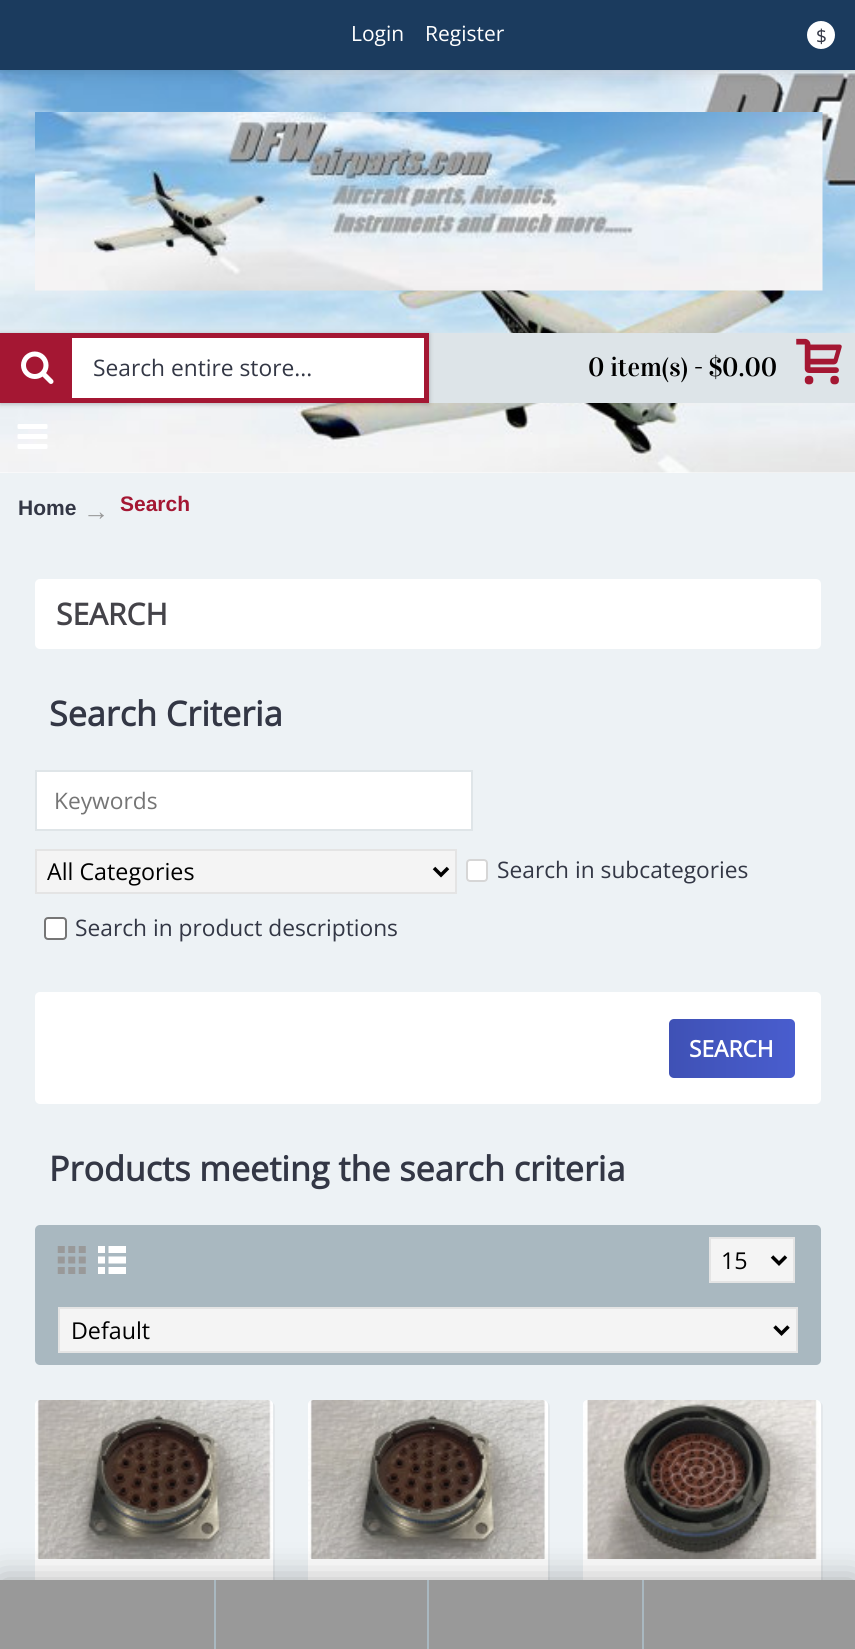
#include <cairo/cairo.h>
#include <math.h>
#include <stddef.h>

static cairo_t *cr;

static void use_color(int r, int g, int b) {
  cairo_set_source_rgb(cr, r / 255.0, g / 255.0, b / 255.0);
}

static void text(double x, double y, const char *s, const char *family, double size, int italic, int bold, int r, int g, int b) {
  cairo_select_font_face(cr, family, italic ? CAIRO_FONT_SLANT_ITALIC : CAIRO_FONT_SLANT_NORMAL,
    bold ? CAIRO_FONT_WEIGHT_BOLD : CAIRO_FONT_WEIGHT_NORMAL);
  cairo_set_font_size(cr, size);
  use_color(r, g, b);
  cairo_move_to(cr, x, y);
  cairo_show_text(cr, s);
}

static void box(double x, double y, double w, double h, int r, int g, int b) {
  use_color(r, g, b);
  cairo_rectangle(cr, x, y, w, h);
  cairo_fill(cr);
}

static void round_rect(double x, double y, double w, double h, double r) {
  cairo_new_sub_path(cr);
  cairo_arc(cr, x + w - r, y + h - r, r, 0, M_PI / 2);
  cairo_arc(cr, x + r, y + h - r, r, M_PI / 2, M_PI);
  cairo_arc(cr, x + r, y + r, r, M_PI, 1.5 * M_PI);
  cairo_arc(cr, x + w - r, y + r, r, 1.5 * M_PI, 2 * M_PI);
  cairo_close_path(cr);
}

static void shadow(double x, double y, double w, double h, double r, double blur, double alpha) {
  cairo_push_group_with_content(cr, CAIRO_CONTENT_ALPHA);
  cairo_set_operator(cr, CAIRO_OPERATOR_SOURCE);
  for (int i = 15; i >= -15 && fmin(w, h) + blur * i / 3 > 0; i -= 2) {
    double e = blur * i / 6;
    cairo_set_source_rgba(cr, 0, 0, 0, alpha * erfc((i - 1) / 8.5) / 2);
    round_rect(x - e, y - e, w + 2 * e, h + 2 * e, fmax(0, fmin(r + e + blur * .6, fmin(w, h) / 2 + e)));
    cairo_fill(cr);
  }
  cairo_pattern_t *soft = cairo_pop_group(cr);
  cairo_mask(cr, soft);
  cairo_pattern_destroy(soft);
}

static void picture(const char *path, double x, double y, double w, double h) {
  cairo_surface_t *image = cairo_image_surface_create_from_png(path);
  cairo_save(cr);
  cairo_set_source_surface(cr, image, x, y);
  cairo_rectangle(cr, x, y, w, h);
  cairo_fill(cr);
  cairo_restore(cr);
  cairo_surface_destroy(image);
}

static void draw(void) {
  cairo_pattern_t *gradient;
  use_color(237, 242, 245);
  cairo_paint(cr);
  box(0, 472, 855, 1, 255, 255, 255);
  picture("img_01.png", 0, 70, 855, 403);
  use_color(0, 0, 0);
  shadow(0, 0, 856, 70, 0, 9, 0.2);
  box(0, 0, 855, 70, 27, 59, 94);
  use_color(255, 255, 255);
  cairo_arc(cr, 821, 35, 14, 0, 2 * M_PI);
  cairo_fill(cr);
  use_color(228, 232, 235);
  cairo_new_path(cr);
  cairo_move_to(cr, 38, 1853);
  cairo_curve_to(cr, 39, 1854, 40, 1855, 42, 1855);
  cairo_line_to(cr, 270, 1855);
  cairo_curve_to(cr, 273, 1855, 275, 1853, 275, 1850);
  cairo_line_to(cr, 275, 1407);
  cairo_curve_to(cr, 275, 1405, 274, 1403, 272, 1403);
  cairo_line_to(cr, 273, 1405);
  cairo_line_to(cr, 273, 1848);
  cairo_curve_to(cr, 273, 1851, 271, 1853, 268, 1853);
  cairo_line_to(cr, 40, 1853);
  cairo_close_path(cr);
  cairo_fill(cr);
  use_color(255, 255, 255);
  round_rect(35, 1400, 238, 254, 5);
  cairo_fill(cr);
  use_color(228, 232, 235);
  cairo_new_path(cr);
  cairo_move_to(cr, 311, 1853);
  cairo_curve_to(cr, 312, 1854, 313, 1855, 315, 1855);
  cairo_line_to(cr, 545, 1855);
  cairo_curve_to(cr, 548, 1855, 550, 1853, 550, 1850);
  cairo_line_to(cr, 550, 1407);
  cairo_curve_to(cr, 550, 1405, 549, 1403, 547, 1402);
  cairo_line_to(cr, 548, 1405);
  cairo_line_to(cr, 548, 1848);
  cairo_curve_to(cr, 548, 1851, 545, 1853, 542, 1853);
  cairo_line_to(cr, 313, 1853);
  cairo_close_path(cr);
  cairo_fill(cr);
  use_color(255, 255, 255);
  round_rect(308, 1400, 240, 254, 5);
  cairo_fill(cr);
  use_color(228, 232, 235);
  cairo_new_path(cr);
  cairo_move_to(cr, 586, 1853);
  cairo_curve_to(cr, 587, 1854, 588, 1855, 590, 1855);
  cairo_line_to(cr, 818, 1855);
  cairo_curve_to(cr, 821, 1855, 823, 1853, 823, 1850);
  cairo_line_to(cr, 823, 1407);
  cairo_curve_to(cr, 823, 1405, 822, 1403, 820, 1402);
  cairo_line_to(cr, 821, 1405);
  cairo_line_to(cr, 821, 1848);
  cairo_curve_to(cr, 821, 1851, 818, 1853, 816, 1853);
  cairo_line_to(cr, 588, 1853);
  cairo_close_path(cr);
  cairo_fill(cr);
  use_color(255, 255, 255);
  round_rect(583, 1400, 238, 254, 5);
  cairo_fill(cr);
  box(0, 1580, 855, 69, 153, 153, 153);
  picture("img_08.png", 35, 1400, 238, 160);
  picture("img_09.png", 308, 1400, 238, 160);
  picture("img_10.png", 583, 1400, 236, 160);
  cairo_save(cr);
  cairo_set_fill_rule(cr, CAIRO_FILL_RULE_EVEN_ODD);
  cairo_new_path(cr);
  cairo_move_to(cr, 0, 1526);
  cairo_line_to(cr, 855, 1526);
  cairo_line_to(cr, 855, 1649);
  cairo_line_to(cr, 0, 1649);
  cairo_close_path(cr);
  cairo_move_to(cr, 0, 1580);
  cairo_line_to(cr, 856, 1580);
  cairo_line_to(cr, 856, 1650);
  cairo_line_to(cr, 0, 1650);
  cairo_close_path(cr);
  cairo_clip(cr);
  use_color(0, 0, 0);
  shadow(0, 1580, 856, 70, 0, 17.5, 0.3);
  cairo_restore(cr);
  box(214, 1580, 2, 69, 169, 184, 192);
  box(427, 1580, 2, 69, 169, 184, 192);
  box(642, 1580, 2, 69, 169, 184, 192);
  picture("img_02.png", 35, 112, 788, 179);
  box(429, 333, 426, 70, 221, 228, 232);
  use_color(0, 0, 0);
  shadow(0, 334, 429, 70, 0, 2.5, 0.25);
  box(72, 338, 352, 60, 255, 255, 255);
  cairo_rectangle(cr, 2.5, 335.5, 424, 65);
  use_color(164, 23, 51);
  cairo_set_line_width(cr, 5);
  cairo_stroke(cr);
  box(5, 338, 67, 60, 164, 23, 51);
  picture("img_03.png", 21, 351, 33, 33);
  picture("img_04.png", 796, 338, 46, 47);
  picture("img_05.png", 17, 424, 31, 25);
  use_color(255, 255, 255);
  round_rect(35, 579, 786, 70, 5);
  cairo_fill(cr);
  cairo_rectangle(cr, 36, 771, 436, 59);
  cairo_fill_preserve(cr);
  use_color(223, 229, 232);
  cairo_set_line_width(cr, 2);
  cairo_stroke(cr);
  use_color(244, 244, 244);
  cairo_rectangle(cr, 36, 850, 420, 43);
  cairo_fill_preserve(cr);
  use_color(228, 228, 228);
  cairo_stroke(cr);
  cairo_new_path(cr);
  cairo_move_to(cr, 434, 868);
  cairo_line_to(cr, 441, 875);
  cairo_line_to(cr, 448, 868);
  use_color(0, 0, 0);
  cairo_set_line_width(cr, 3.5);
  cairo_stroke(cr);
  use_color(255, 255, 255);
  round_rect(466, 859, 22, 23, 4);
  cairo_fill(cr);
  round_rect(467, 860, 20, 21, 3);
  cairo_set_source_rgba(cr, 0.463, 0.463, 0.463, 0.3);
  cairo_set_line_width(cr, 2);
  cairo_stroke(cr);
  use_color(255, 255, 255);
  round_rect(45, 918, 21, 21, 3);
  cairo_fill_preserve(cr);
  use_color(118, 118, 118);
  cairo_stroke(cr);
  use_color(255, 255, 255);
  round_rect(35, 992, 786, 112, 5);
  cairo_fill(cr);
  gradient = cairo_pattern_create_linear(795, 1048, 669, 1048);
  cairo_pattern_add_color_stop_rgba(gradient, 0, 0.286, 0.365, 0.808, 1);
  cairo_pattern_add_color_stop_rgba(gradient, 1, 0.247, 0.318, 0.71, 1);
  cairo_set_source(cr, gradient);
  cairo_pattern_destroy(gradient);
  round_rect(669, 1019, 126, 59, 5);
  cairo_fill(cr);
  use_color(169, 184, 192);
  round_rect(35, 1225, 786, 140, 5);
  cairo_fill(cr);
  picture("img_06.png", 57, 1246, 29, 28);
  picture("img_07.png", 98, 1246, 28, 28);
  use_color(244, 244, 244);
  cairo_rectangle(cr, 710, 1238, 84, 44);
  cairo_fill_preserve(cr);
  use_color(228, 228, 228);
  cairo_stroke(cr);
  cairo_new_path(cr);
  cairo_move_to(cr, 772, 1256.5);
  cairo_line_to(cr, 779, 1263.5);
  cairo_line_to(cr, 786, 1256.5);
  use_color(0, 0, 0);
  cairo_set_line_width(cr, 3.5);
  cairo_stroke(cr);
  use_color(244, 244, 244);
  cairo_rectangle(cr, 59, 1308, 738, 44);
  cairo_fill_preserve(cr);
  use_color(228, 228, 228);
  cairo_set_line_width(cr, 2);
  cairo_stroke(cr);
  cairo_new_path(cr);
  cairo_move_to(cr, 774.5, 1326.5);
  cairo_line_to(cr, 781.5, 1333.5);
  cairo_line_to(cr, 788.5, 1326.5);
  use_color(0, 0, 0);
  cairo_set_line_width(cr, 3.5);
  cairo_stroke(cr);
  text(351, 41, "Login", "Open Sans", 21, 0, 0, 255, 255, 255);
  text(425, 41, "Register", "Open Sans", 21, 0, 0, 255, 255, 255);
  text(816, 43, "$", "Open Sans", 19, 0, 0, 51, 55, 69);
  text(93, 376, "Search entire store...", "Open Sans", 22.75, 0, 0, 51, 55, 69);
  text(588, 376, "0 item(s) - $0.00", "Vidaloka", 26.25, 0, 0, 0, 0, 0);
  text(18, 515, "Home", "Liberation Sans", 21, 0, 1, 51, 55, 69);
  text(120, 511, "Search", "Liberation Sans", 21, 0, 1, 164, 23, 51);
  text(83, 520, "→", "Liberation Serif", 26.25, 0, 0, 153, 153, 153);
  text(56, 625, "SEARCH", "Open Sans", 30, 0, 1, 68, 67, 73);
  text(49, 726, "Search Criteria", "Open Sans", 34.1, 0, 1, 51, 55, 69);
  text(54, 809, "Keywords", "Open Sans", 22.75, 0, 0, 117, 117, 117);
  text(47, 880, "All Categories", "Open Sans", 23.25, 0, 0, 0, 0, 0);
  text(497, 878, "Search in subcategories", "Open Sans", 22.75, 0, 0, 51, 55, 69);
  text(75, 936, "Search in product descriptions", "Open Sans", 22.75, 0, 0, 51, 55, 69);
  text(689, 1057, "SEARCH", "Open Sans", 22.75, 0, 1, 255, 255, 255);
  text(49, 1181, "Products meeting the search criteria", "Open Sans", 34.1, 0, 1, 51, 55, 69);
  text(721, 1269, "15", "Open Sans", 23.25, 0, 0, 0, 0, 0);
  text(71, 1339, "Default", "Open Sans", 23.25, 0, 0, 0, 0, 0);
}

int main(void) {
  cairo_surface_t *surface = cairo_image_surface_create(CAIRO_FORMAT_RGB24, 855, 1649);
  cr = cairo_create(surface);
  cairo_font_options_t *options = cairo_font_options_create();
  cairo_font_options_set_hint_metrics(options, CAIRO_HINT_METRICS_OFF);
  cairo_font_options_set_hint_style(options, CAIRO_HINT_STYLE_NONE);
  cairo_set_font_options(cr, options);
  cairo_set_miter_limit(cr, 4);
  draw();
  cairo_surface_write_to_png(surface, "out.png");
  cairo_font_options_destroy(options);
  cairo_destroy(cr);
  cairo_surface_destroy(surface);
  return 0;
}
